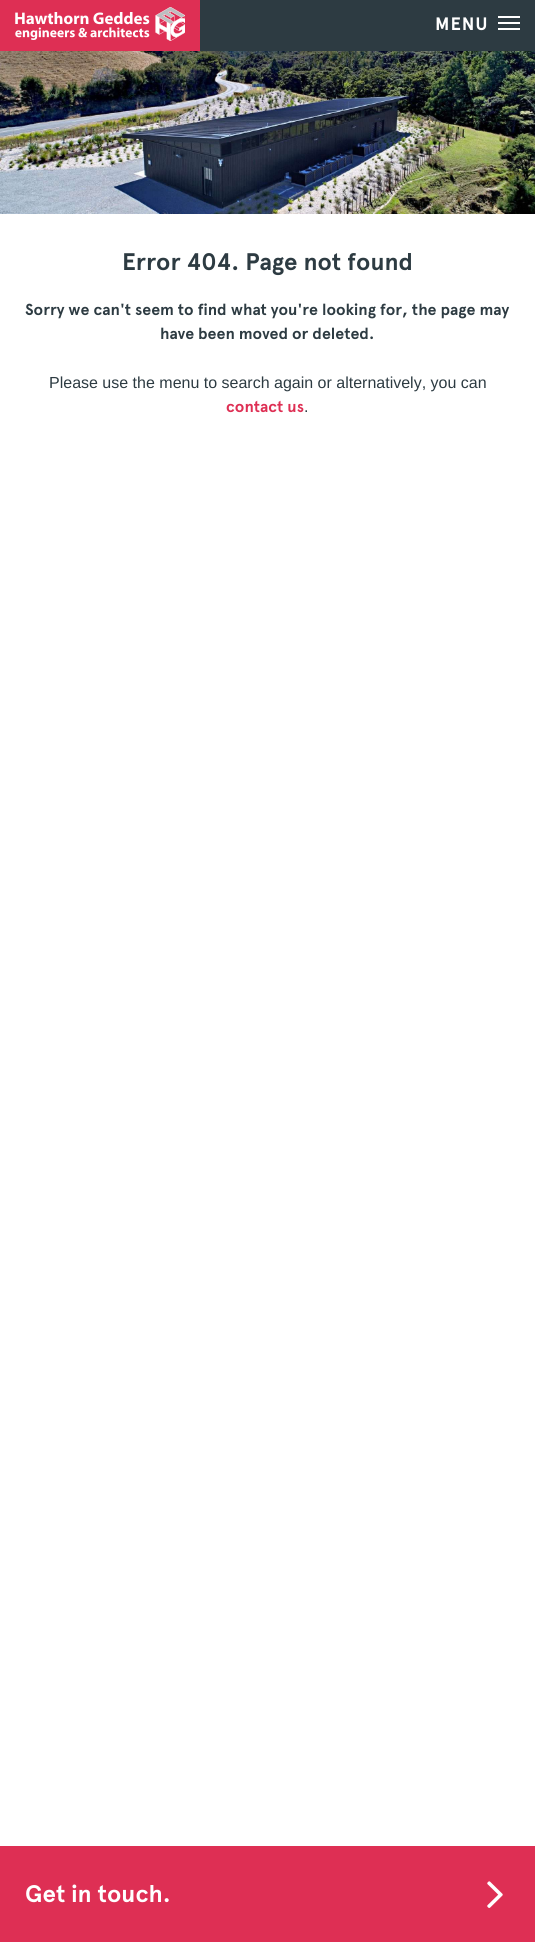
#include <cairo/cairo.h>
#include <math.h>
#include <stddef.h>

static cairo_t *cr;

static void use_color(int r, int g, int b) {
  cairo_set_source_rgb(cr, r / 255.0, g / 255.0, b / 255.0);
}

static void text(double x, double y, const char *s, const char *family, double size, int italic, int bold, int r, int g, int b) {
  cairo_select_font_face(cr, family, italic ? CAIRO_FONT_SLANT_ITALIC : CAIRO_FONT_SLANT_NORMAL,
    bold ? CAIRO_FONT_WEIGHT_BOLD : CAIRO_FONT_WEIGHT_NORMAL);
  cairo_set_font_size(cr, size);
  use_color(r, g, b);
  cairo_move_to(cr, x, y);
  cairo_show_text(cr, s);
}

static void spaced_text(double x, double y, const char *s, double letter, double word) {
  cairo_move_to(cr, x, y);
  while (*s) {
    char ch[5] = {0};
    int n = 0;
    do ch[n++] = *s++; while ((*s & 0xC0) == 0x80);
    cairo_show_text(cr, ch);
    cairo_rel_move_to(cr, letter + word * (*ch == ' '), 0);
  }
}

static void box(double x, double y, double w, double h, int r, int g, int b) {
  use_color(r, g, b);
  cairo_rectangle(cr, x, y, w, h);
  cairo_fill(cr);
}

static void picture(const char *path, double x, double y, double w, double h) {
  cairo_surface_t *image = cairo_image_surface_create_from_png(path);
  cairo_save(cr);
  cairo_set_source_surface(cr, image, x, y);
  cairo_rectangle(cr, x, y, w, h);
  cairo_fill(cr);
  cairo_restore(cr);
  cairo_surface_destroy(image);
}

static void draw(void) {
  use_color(255, 255, 255);
  cairo_paint(cr);
  box(200, 0, 335, 51, 45, 59, 66);
  box(0, 0, 200, 51, 222, 47, 84);
  picture("img_01.png", 15, 7, 170, 34);
  box(498, 16, 22, 2, 255, 255, 255);
  box(498, 22, 22, 2, 255, 255, 255);
  box(498, 28, 22, 2, 255, 255, 255);
  picture("img_02.png", 0, 51, 535, 163);
  box(0, 1846, 535, 96, 222, 47, 84);
  picture("img_03.png", 487, 1881, 16, 27);
  cairo_select_font_face(cr, "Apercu", CAIRO_FONT_SLANT_NORMAL, CAIRO_FONT_WEIGHT_BOLD);
  cairo_set_font_size(cr, 18);
  use_color(255, 255, 255);
  spaced_text(435, 30, "MENU", 1, 0);
  text(122, 270, "Error 404. Page not found", "Apercu", 24, 0, 1, 45, 59, 66);
  text(25, 315, "Sorry we can't seem to find what you're looking for, the page may", "Apercu", 16, 0, 1, 45, 59, 66);
  text(160, 339, "have been moved or deleted.", "Apercu", 16, 0, 1, 45, 59, 66);
  text(49, 388, "Please use the menu to search again or alternatively, you can", "Liberation Sans", 16, 0, 0, 45, 59, 66);
  text(226, 412, "contact us", "Apercu", 16, 0, 1, 222, 47, 84);
  text(304, 412, ".", "Liberation Sans", 16, 0, 0, 45, 59, 66);
  text(25, 1902, "Get in touch.", "Apercu", 24, 0, 1, 255, 255, 255);
}

int main(void) {
  cairo_surface_t *surface = cairo_image_surface_create(CAIRO_FORMAT_RGB24, 535, 1942);
  cr = cairo_create(surface);
  cairo_font_options_t *options = cairo_font_options_create();
  cairo_font_options_set_hint_metrics(options, CAIRO_HINT_METRICS_OFF);
  cairo_font_options_set_hint_style(options, CAIRO_HINT_STYLE_NONE);
  cairo_set_font_options(cr, options);
  cairo_set_miter_limit(cr, 4);
  draw();
  cairo_surface_write_to_png(surface, "out.png");
  cairo_font_options_destroy(options);
  cairo_destroy(cr);
  cairo_surface_destroy(surface);
  return 0;
}
